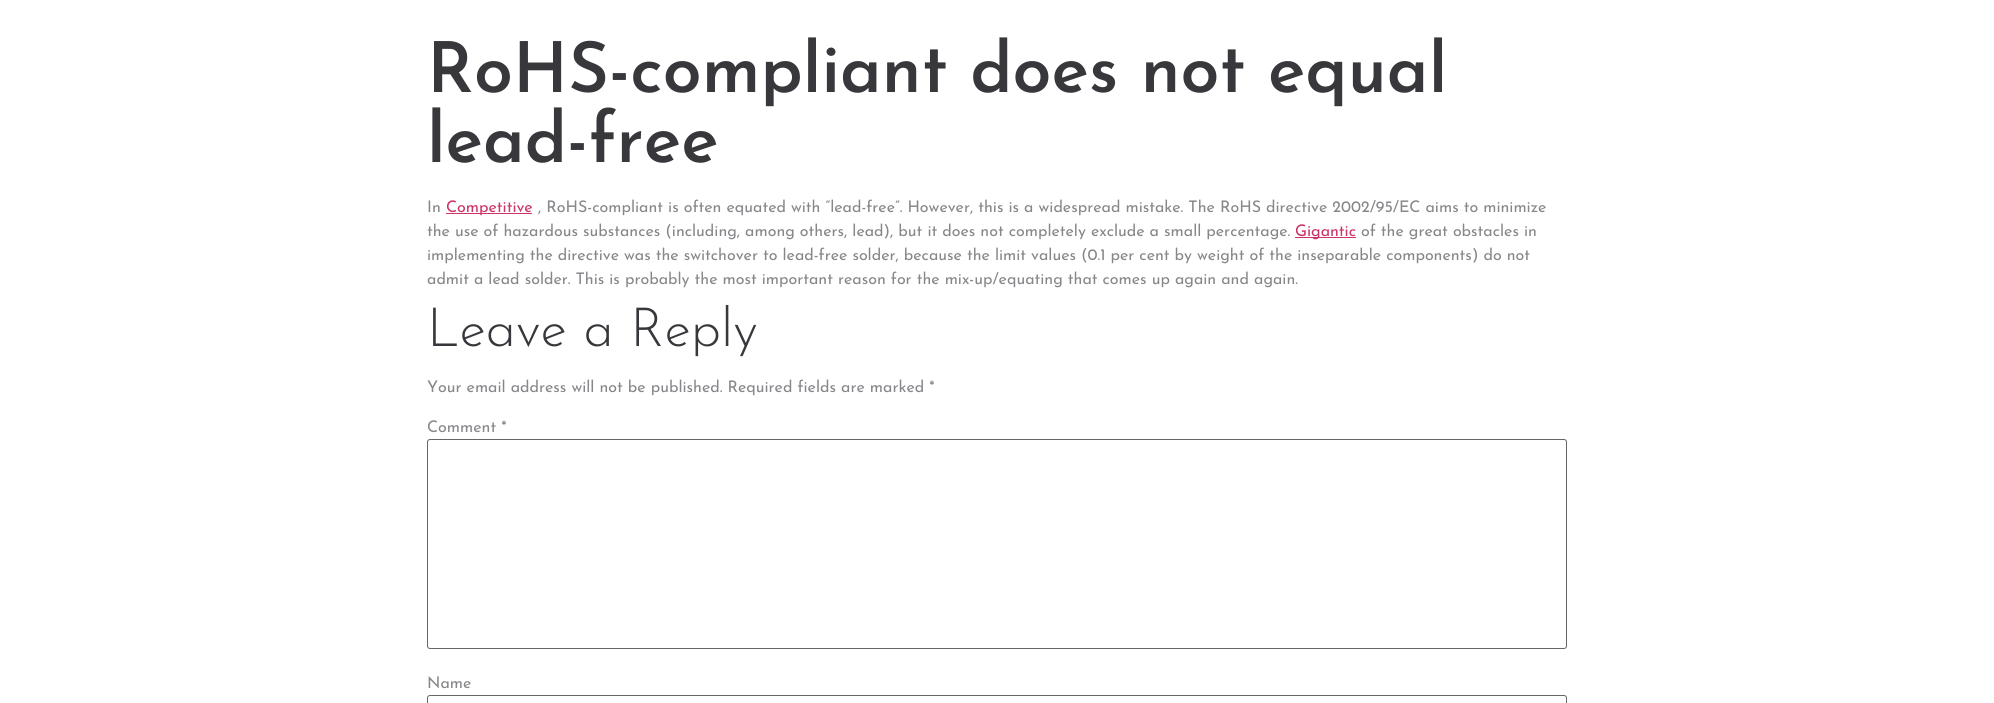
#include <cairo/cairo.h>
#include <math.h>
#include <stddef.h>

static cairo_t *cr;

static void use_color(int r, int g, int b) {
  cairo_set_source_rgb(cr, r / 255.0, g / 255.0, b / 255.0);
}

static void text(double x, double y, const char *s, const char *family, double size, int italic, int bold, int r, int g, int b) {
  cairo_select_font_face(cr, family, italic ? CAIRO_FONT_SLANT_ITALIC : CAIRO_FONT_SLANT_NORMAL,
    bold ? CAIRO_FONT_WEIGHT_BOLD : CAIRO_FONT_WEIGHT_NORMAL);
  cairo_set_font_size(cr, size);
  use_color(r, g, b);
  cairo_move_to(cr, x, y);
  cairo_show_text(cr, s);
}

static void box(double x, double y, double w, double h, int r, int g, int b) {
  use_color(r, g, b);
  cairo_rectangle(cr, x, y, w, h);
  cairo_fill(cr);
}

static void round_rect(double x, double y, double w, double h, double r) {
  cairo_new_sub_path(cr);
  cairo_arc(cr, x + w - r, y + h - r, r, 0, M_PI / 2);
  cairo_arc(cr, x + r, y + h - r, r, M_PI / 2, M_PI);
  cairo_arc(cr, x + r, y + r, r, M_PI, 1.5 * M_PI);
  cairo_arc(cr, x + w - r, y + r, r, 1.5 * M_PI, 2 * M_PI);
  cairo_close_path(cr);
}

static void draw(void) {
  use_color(255, 255, 255);
  cairo_paint(cr);
  box(446, 213, 86, 1, 204, 51, 102);
  box(1295, 237, 61, 1, 204, 51, 102);
  round_rect(427.5, 439.5, 1139, 209, 2.5);
  use_color(102, 102, 102);
  cairo_set_line_width(cr, 1);
  cairo_stroke(cr);
  round_rect(427.5, 695.5, 1139, 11, 2.5);
  cairo_stroke(cr);
  text(427, 92, "RoHS-compliant does not equal", "Josefin Sans SemiBold", 70, 0, 0, 56, 55, 60);
  text(427, 162, "lead-free", "Josefin Sans SemiBold", 70, 0, 0, 56, 55, 60);
  text(427, 212, "In", "Josefin Sans", 16, 0, 0, 135, 134, 138);
  text(446, 212, "Competitive", "Josefin Sans", 16, 0, 0, 204, 51, 102);
  text(538, 212, ", RoHS-compliant is often equated with “lead-free”. However, this is a widespread mistake. The RoHS directive 2002/95/EC aims to minimize", "Josefin Sans", 16, 0, 0, 135, 134, 138);
  text(427, 236, "the use of hazardous substances (including, among others, lead), but it does not completely exclude a small percentage.", "Josefin Sans", 16, 0, 0, 135, 134, 138);
  text(1295, 236, "Gigantic", "Josefin Sans", 16, 0, 0, 204, 51, 102);
  text(1361, 236, "of the great obstacles in", "Josefin Sans", 16, 0, 0, 135, 134, 138);
  text(427, 260, "implementing the directive was the switchover to lead-free solder, because the limit values (0.1 per cent by weight of the inseparable components) do not", "Josefin Sans", 16, 0, 0, 135, 134, 138);
  text(427, 284, "admit a lead solder. This is probably the most important reason for the mix-up/equating that comes up again and again.", "Josefin Sans", 16, 0, 0, 135, 134, 138);
  text(427, 346, "Leave a Reply", "Josefin Sans Light", 54, 0, 0, 56, 55, 60);
  text(427, 392, "Your email address will not be published. Required fields are marked *", "Josefin Sans", 16, 0, 0, 135, 134, 138);
  text(427, 432, "Comment *", "Josefin Sans", 16, 0, 0, 135, 134, 138);
  text(427, 688, "Name", "Josefin Sans", 16, 0, 0, 135, 134, 138);
}

int main(void) {
  cairo_surface_t *surface = cairo_image_surface_create(CAIRO_FORMAT_RGB24, 1994, 703);
  cr = cairo_create(surface);
  cairo_font_options_t *options = cairo_font_options_create();
  cairo_font_options_set_hint_metrics(options, CAIRO_HINT_METRICS_OFF);
  cairo_font_options_set_hint_style(options, CAIRO_HINT_STYLE_NONE);
  cairo_set_font_options(cr, options);
  cairo_set_miter_limit(cr, 4);
  draw();
  cairo_surface_write_to_png(surface, "out.png");
  cairo_font_options_destroy(options);
  cairo_destroy(cr);
  cairo_surface_destroy(surface);
  return 0;
}
